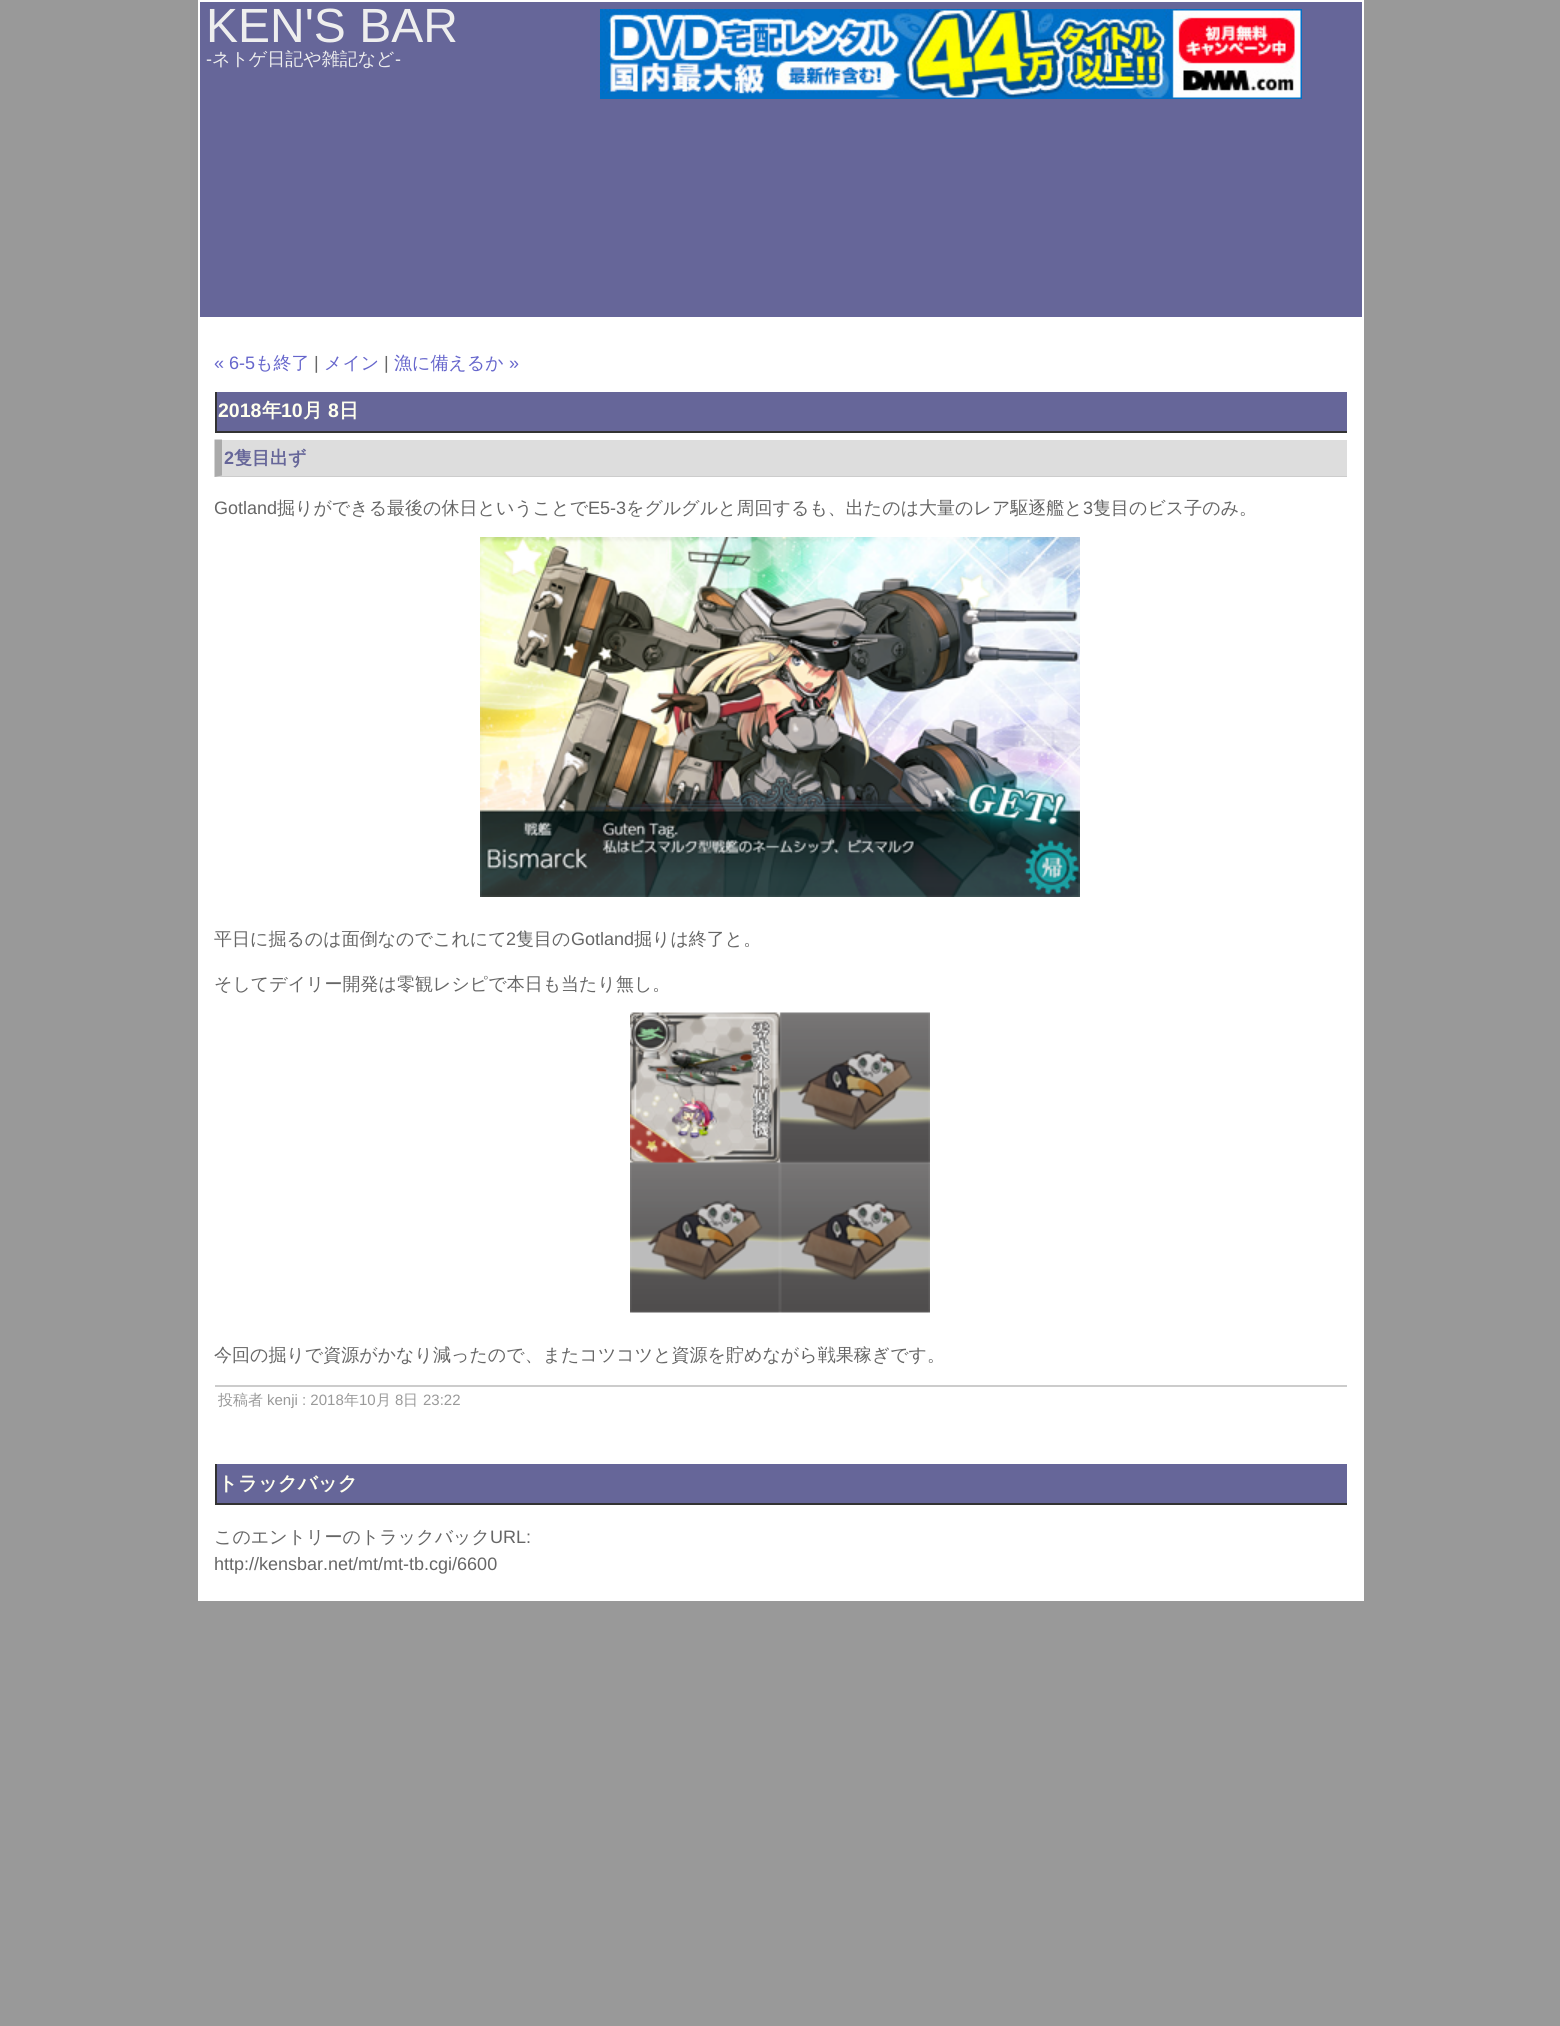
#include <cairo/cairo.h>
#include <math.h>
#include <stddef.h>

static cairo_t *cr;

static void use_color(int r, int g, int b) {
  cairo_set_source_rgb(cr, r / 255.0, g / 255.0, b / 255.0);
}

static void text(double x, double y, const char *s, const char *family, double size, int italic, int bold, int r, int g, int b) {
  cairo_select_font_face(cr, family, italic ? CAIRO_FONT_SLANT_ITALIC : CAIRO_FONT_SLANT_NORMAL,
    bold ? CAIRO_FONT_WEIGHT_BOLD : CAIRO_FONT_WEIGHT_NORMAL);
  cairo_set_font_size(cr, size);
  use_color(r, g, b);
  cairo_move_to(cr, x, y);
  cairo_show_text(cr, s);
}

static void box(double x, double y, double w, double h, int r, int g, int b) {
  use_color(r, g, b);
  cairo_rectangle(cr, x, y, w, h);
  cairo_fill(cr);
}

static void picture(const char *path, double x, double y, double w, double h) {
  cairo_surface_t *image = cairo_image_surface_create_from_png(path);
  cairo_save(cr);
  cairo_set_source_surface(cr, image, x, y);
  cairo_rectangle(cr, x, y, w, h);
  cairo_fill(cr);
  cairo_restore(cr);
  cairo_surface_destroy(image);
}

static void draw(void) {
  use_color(153, 153, 153);
  cairo_paint(cr);
  box(198, 0, 1166, 1601, 255, 255, 255);
  box(200, 2, 1162, 315, 102, 102, 153);
  picture("img_01.png", 600, 9, 702, 90);
  box(217, 392, 1130, 39, 102, 102, 153);
  box(215, 431, 1132, 2, 51, 51, 51);
  box(215, 392, 2, 40, 51, 51, 51);
  box(215, 440, 1132, 37, 221, 221, 221);
  use_color(204, 204, 204);
  cairo_new_path(cr);
  cairo_move_to(cr, 1347, 477);
  cairo_line_to(cr, 214, 477);
  cairo_line_to(cr, 222, 476);
  cairo_line_to(cr, 1347, 476);
  cairo_close_path(cr);
  cairo_fill(cr);
  use_color(170, 170, 170);
  cairo_new_path(cr);
  cairo_move_to(cr, 214.5, 477);
  cairo_line_to(cr, 214.5, 439.5);
  cairo_line_to(cr, 222, 439.5);
  cairo_line_to(cr, 222, 475.5);
  cairo_close_path(cr);
  cairo_fill(cr);
  picture("img_02.png", 480, 537, 600, 360);
  picture("img_03.png", 630, 1012, 300, 301);
  box(215, 1385, 1132, 2, 204, 204, 204);
  box(217, 1464, 1130, 39, 102, 102, 153);
  box(215, 1503, 1132, 2, 51, 51, 51);
  box(215, 1464, 2, 41, 51, 51, 51);
  text(206, 42, "KEN'S BAR", "Liberation Sans", 48, 0, 0, 238, 238, 238);
  text(206, 65, "-", "Liberation Sans", 18, 0, 0, 238, 238, 238);
  text(212, 65, "ネトゲ日記や雑記など", "WenQuanYi Zen Hei Medium", 18, 0, 0, 238, 238, 238);
  text(395, 65, "-", "Liberation Sans", 18, 0, 0, 238, 238, 238);
  text(214, 369, "« 6-5", "Liberation Sans", 18, 0, 0, 102, 102, 204);
  text(255, 369, "も終了", "WenQuanYi Zen Hei Medium", 18, 0, 0, 102, 102, 204);
  text(314, 369, "|", "Liberation Sans", 18, 0, 0, 102, 102, 102);
  text(324, 369, "メイン", "WenQuanYi Zen Hei Medium", 18, 0, 0, 102, 102, 204);
  text(384, 369, "|", "Liberation Sans", 18, 0, 0, 102, 102, 102);
  text(394, 369, "漁に備えるか", "WenQuanYi Zen Hei Medium", 18, 0, 0, 102, 102, 204);
  text(509, 369, "»", "Liberation Sans", 18, 0, 0, 102, 102, 204);
  text(218, 417, "2018", "Liberation Sans", 19.5, 0, 1, 255, 255, 238);
  text(262, 417, "年", "WenQuanYi Zen Hei", 19.5, 0, 1, 255, 255, 238);
  text(281, 417, "10", "Liberation Sans", 19.5, 0, 1, 255, 255, 238);
  text(303, 417, "月", "WenQuanYi Zen Hei", 19.5, 0, 1, 255, 255, 238);
  text(328, 417, "8", "Liberation Sans", 19.5, 0, 1, 255, 255, 238);
  text(339, 417, "日", "WenQuanYi Zen Hei", 19.5, 0, 1, 255, 255, 238);
  text(224, 464, "2", "Liberation Sans", 18, 0, 1, 102, 102, 153);
  text(234, 464, "隻目出ず", "WenQuanYi Zen Hei", 18, 0, 1, 102, 102, 153);
  text(214, 514, "Gotland", "Liberation Sans", 18, 0, 0, 102, 102, 102);
  text(277, 514, "掘りができる最後の休日ということで", "WenQuanYi Zen Hei Medium", 18, 0, 0, 102, 102, 102);
  text(588, 514, "E5-3", "Liberation Sans", 18, 0, 0, 102, 102, 102);
  text(626, 514, "をグルグルと周回するも、出たのは大量のレア駆逐艦と", "WenQuanYi Zen Hei Medium", 18, 0, 0, 102, 102, 102);
  text(1083, 514, "3", "Liberation Sans", 18, 0, 0, 102, 102, 102);
  text(1093, 514, "隻目のビス子のみ。", "WenQuanYi Zen Hei Medium", 18, 0, 0, 102, 102, 102);
  text(214, 945, "平日に掘るのは面倒なのでこれにて", "WenQuanYi Zen Hei Medium", 18, 0, 0, 102, 102, 102);
  text(506, 945, "2", "Liberation Sans", 18, 0, 0, 102, 102, 102);
  text(516, 945, "隻目の", "WenQuanYi Zen Hei Medium", 18, 0, 0, 102, 102, 102);
  text(571, 945, "Gotland", "Liberation Sans", 18, 0, 0, 102, 102, 102);
  text(634, 945, "掘りは終了と。", "WenQuanYi Zen Hei Medium", 18, 0, 0, 102, 102, 102);
  text(214, 990, "そしてデイリー開発は零観レシピで本日も当たり無し。", "WenQuanYi Zen Hei Medium", 18, 0, 0, 102, 102, 102);
  text(214, 1361, "今回の掘りで資源がかなり減ったので、またコツコツと資源を貯めながら戦果稼ぎです。", "WenQuanYi Zen Hei Medium", 18, 0, 0, 102, 102, 102);
  text(218, 1405, "投稿者", "WenQuanYi Zen Hei Medium", 15, 0, 0, 153, 153, 153);
  text(267, 1405, "kenji : 2018", "Liberation Sans", 15, 0, 0, 153, 153, 153);
  text(344, 1405, "年", "WenQuanYi Zen Hei Medium", 15, 0, 0, 153, 153, 153);
  text(359, 1405, "10", "Liberation Sans", 15, 0, 0, 153, 153, 153);
  text(376, 1405, "月", "WenQuanYi Zen Hei Medium", 15, 0, 0, 153, 153, 153);
  text(395, 1405, "8", "Liberation Sans", 15, 0, 0, 153, 153, 153);
  text(403, 1405, "日", "WenQuanYi Zen Hei Medium", 15, 0, 0, 153, 153, 153);
  text(423, 1405, "23:22", "Liberation Sans", 15, 0, 0, 153, 153, 153);
  text(218, 1490, "トラックバック", "WenQuanYi Zen Hei", 19.5, 0, 1, 255, 255, 238);
  text(214, 1543, "このエントリーのトラックバック", "WenQuanYi Zen Hei Medium", 18, 0, 0, 102, 102, 102);
  text(490, 1543, "URL:", "Liberation Sans", 18, 0, 0, 102, 102, 102);
  text(214, 1570, "http://kensbar.net/mt/mt-tb.cgi/6600", "Liberation Sans", 18, 0, 0, 102, 102, 102);
}

int main(void) {
  cairo_surface_t *surface = cairo_image_surface_create(CAIRO_FORMAT_RGB24, 1560, 2026);
  cr = cairo_create(surface);
  cairo_font_options_t *options = cairo_font_options_create();
  cairo_font_options_set_hint_metrics(options, CAIRO_HINT_METRICS_OFF);
  cairo_font_options_set_hint_style(options, CAIRO_HINT_STYLE_NONE);
  cairo_set_font_options(cr, options);
  cairo_set_miter_limit(cr, 4);
  draw();
  cairo_surface_write_to_png(surface, "out.png");
  cairo_font_options_destroy(options);
  cairo_destroy(cr);
  cairo_surface_destroy(surface);
  return 0;
}
